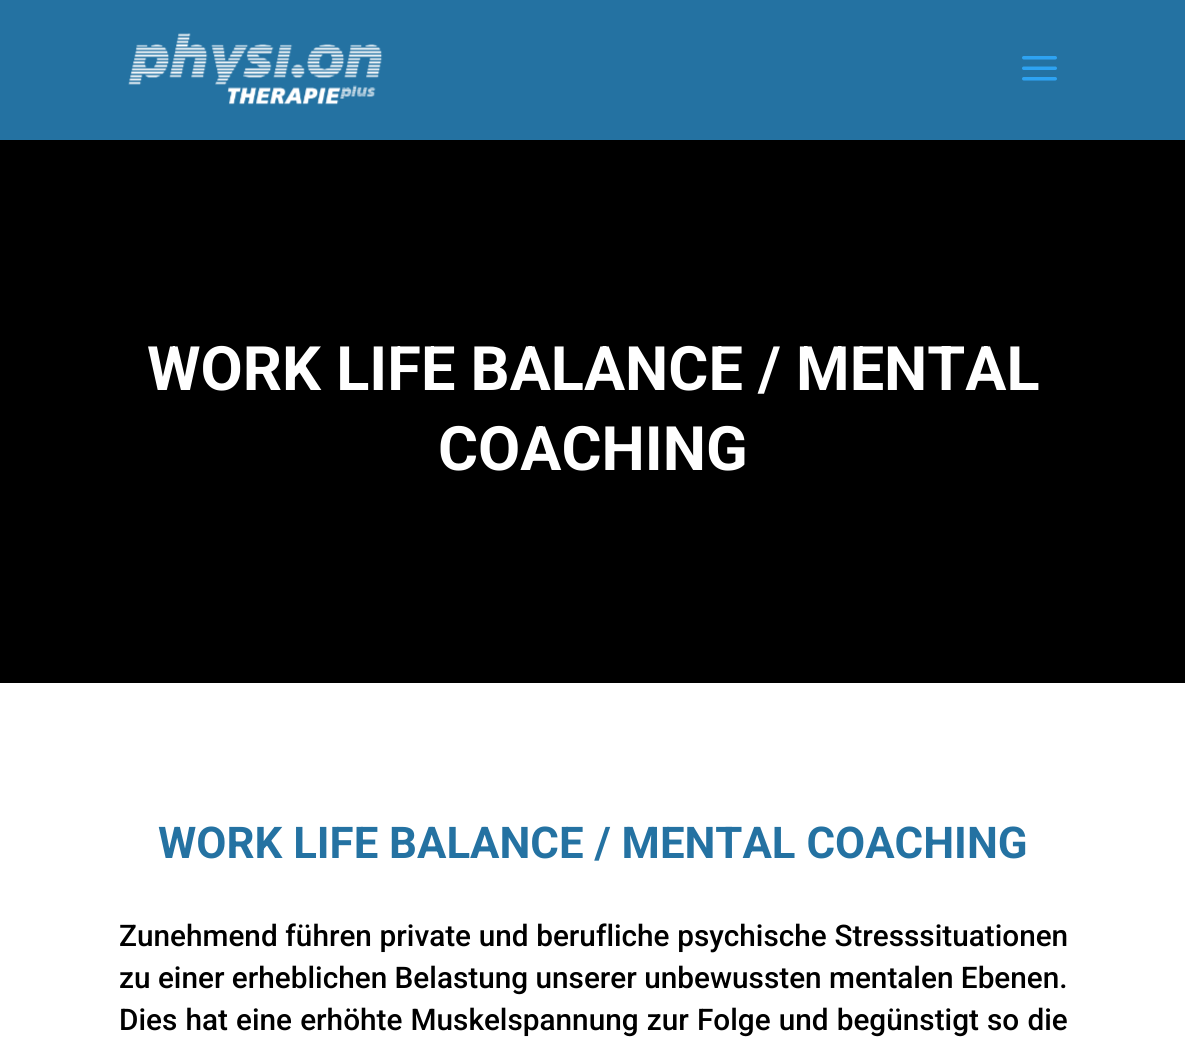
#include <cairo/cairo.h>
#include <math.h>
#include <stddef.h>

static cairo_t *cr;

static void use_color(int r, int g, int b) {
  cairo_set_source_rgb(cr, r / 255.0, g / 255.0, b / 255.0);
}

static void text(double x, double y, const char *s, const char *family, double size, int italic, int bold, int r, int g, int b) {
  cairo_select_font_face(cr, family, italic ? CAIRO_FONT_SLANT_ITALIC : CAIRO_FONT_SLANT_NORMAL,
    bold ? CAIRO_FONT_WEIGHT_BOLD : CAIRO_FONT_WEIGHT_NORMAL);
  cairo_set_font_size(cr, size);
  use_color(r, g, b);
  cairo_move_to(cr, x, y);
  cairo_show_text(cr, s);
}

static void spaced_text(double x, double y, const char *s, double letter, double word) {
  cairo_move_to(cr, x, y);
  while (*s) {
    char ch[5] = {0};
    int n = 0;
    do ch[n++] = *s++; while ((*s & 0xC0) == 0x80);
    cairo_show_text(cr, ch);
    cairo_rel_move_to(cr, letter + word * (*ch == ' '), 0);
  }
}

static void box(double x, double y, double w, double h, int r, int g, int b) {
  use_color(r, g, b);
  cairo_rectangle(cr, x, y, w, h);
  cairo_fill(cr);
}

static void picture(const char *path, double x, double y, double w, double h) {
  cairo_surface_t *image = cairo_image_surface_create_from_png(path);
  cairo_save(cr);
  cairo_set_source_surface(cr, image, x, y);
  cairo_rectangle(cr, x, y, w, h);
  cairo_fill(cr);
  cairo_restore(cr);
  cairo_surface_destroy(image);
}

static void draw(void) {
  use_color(255, 255, 255);
  cairo_paint(cr);
  box(0, 0, 1185, 140, 36, 114, 162);
  picture("img_01.png", 128, 33, 255, 72);
  picture("img_02.png", 1022, 56, 35, 25);
  box(0, 140, 1185, 543, 0, 0, 0);
  text(147, 390, "WORK LIFE BALANCE / MENTAL", "Roboto", 61.25, 0, 1, 255, 255, 255);
  text(438, 470, "COACHING", "Roboto", 61.25, 0, 1, 255, 255, 255);
  text(158, 858, "WORK LIFE BALANCE / MENTAL COACHING", "Roboto", 43.75, 0, 1, 36, 114, 162);
  cairo_select_font_face(cr, "Roboto Medium", CAIRO_FONT_SLANT_NORMAL, CAIRO_FONT_WEIGHT_NORMAL);
  cairo_set_font_size(cr, 29.75);
  use_color(0, 0, 0);
  spaced_text(119, 946, "Zunehmend führen private und berufliche psychische Stresssituationen", 0, 0.25);
  text(119, 988, "zu einer erheblichen Belastung unserer unbewussten mentalen Ebenen.", "Roboto Medium", 29.75, 0, 0, 0, 0, 0);
  spaced_text(119, 1030, "Dies hat eine erhöhte Muskelspannung zur Folge und begünstigt so die", 0, 0.75);
}

int main(void) {
  cairo_surface_t *surface = cairo_image_surface_create(CAIRO_FORMAT_RGB24, 1185, 1060);
  cr = cairo_create(surface);
  cairo_font_options_t *options = cairo_font_options_create();
  cairo_font_options_set_hint_metrics(options, CAIRO_HINT_METRICS_OFF);
  cairo_font_options_set_hint_style(options, CAIRO_HINT_STYLE_NONE);
  cairo_set_font_options(cr, options);
  cairo_set_miter_limit(cr, 4);
  draw();
  cairo_surface_write_to_png(surface, "out.png");
  cairo_font_options_destroy(options);
  cairo_destroy(cr);
  cairo_surface_destroy(surface);
  return 0;
}
